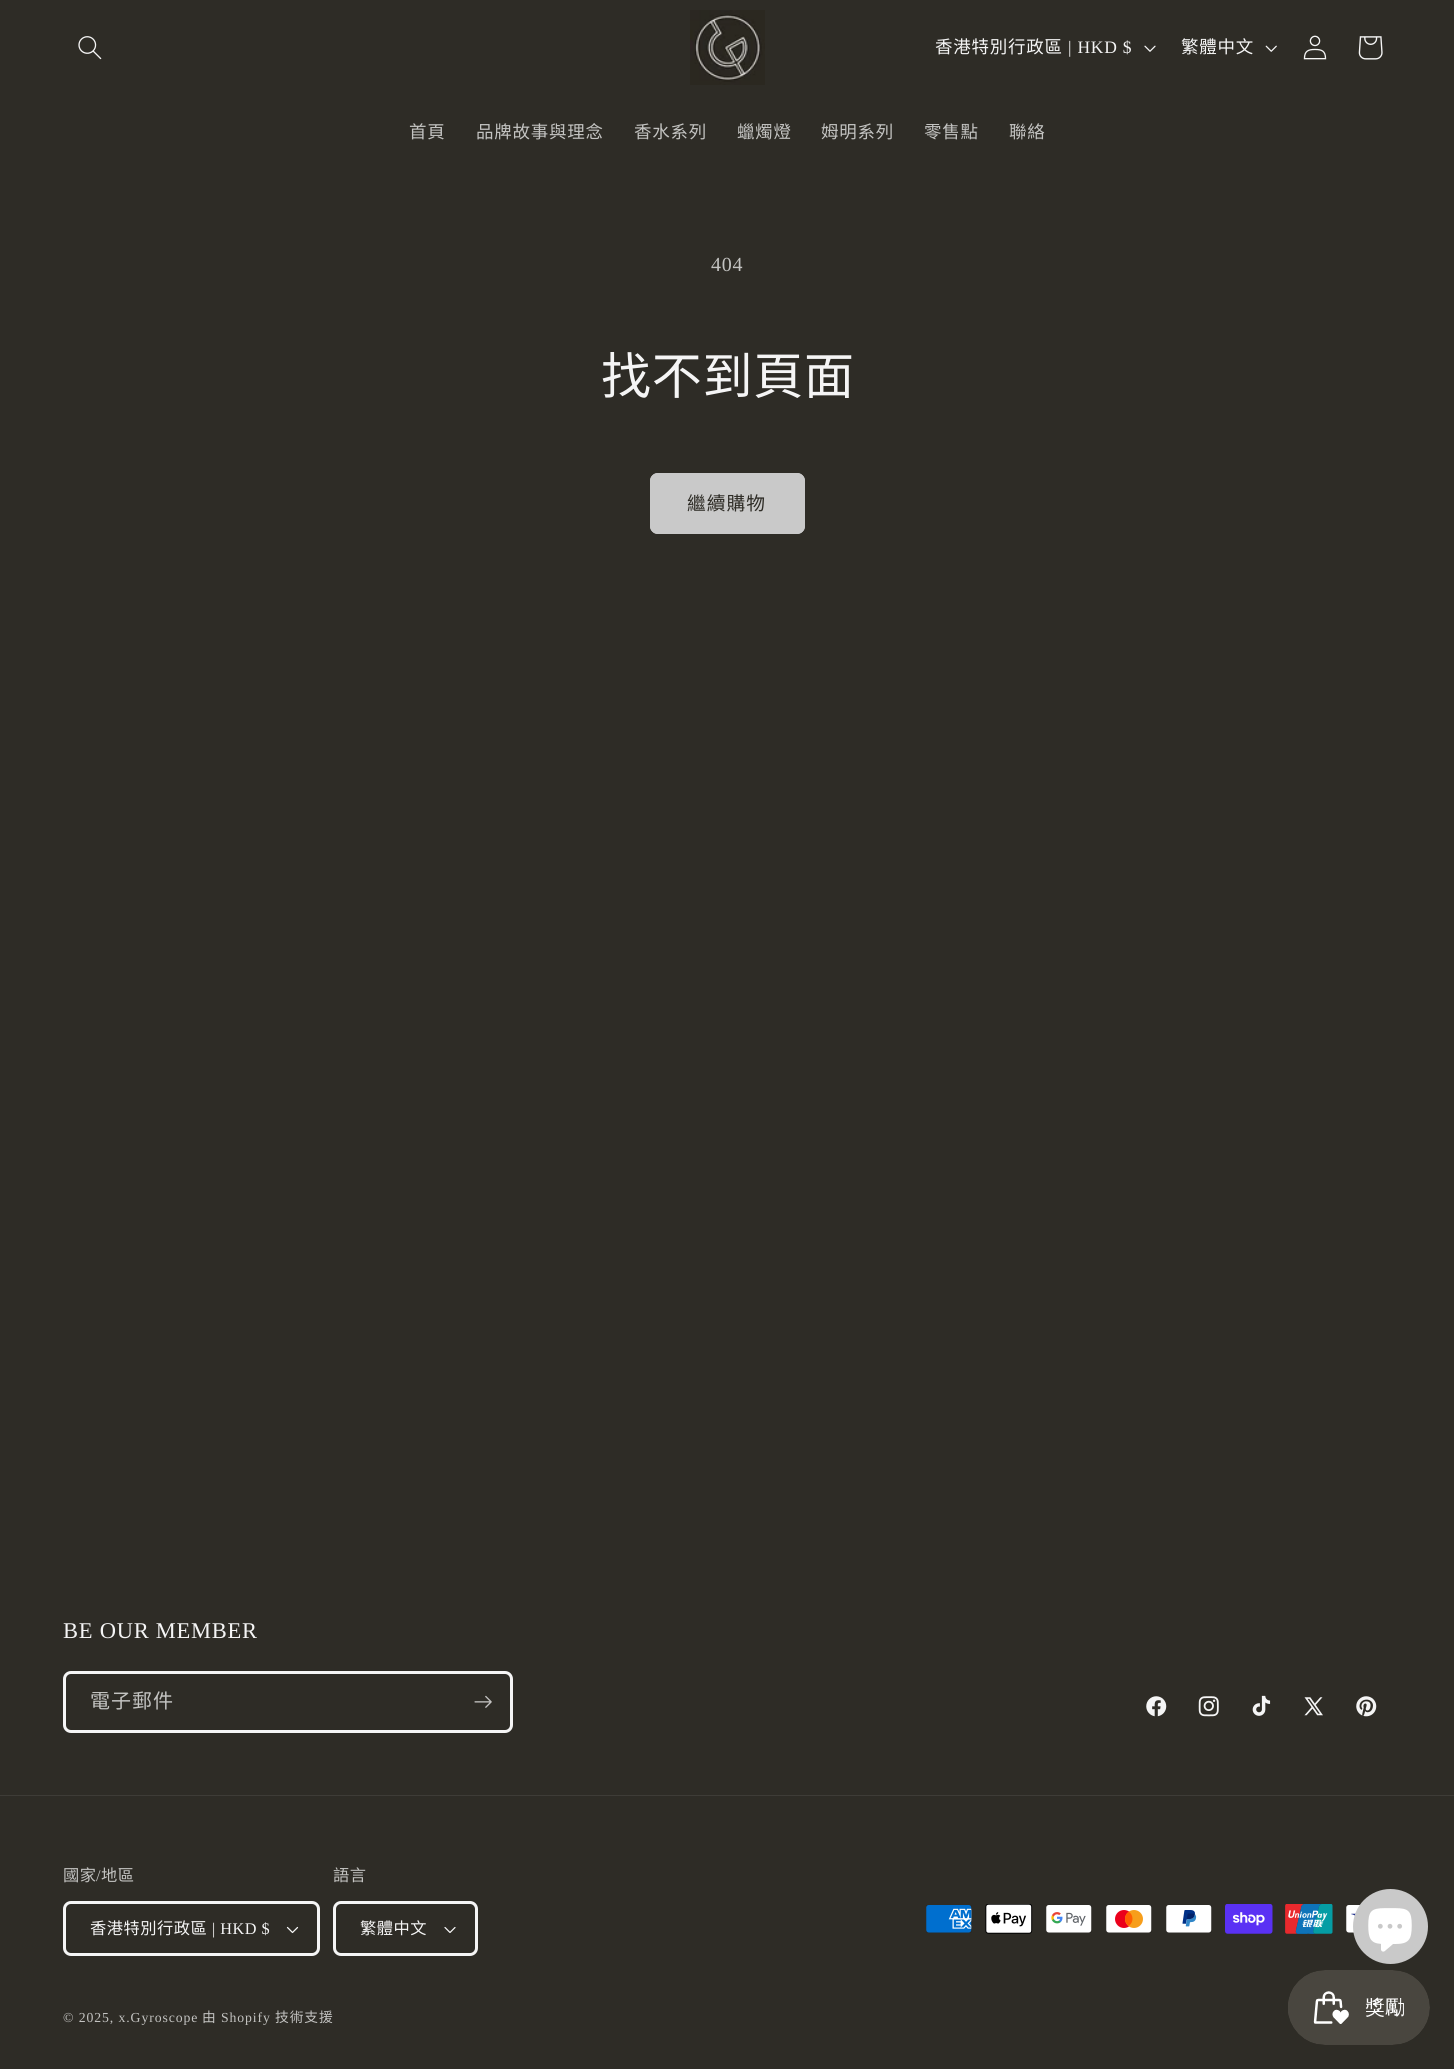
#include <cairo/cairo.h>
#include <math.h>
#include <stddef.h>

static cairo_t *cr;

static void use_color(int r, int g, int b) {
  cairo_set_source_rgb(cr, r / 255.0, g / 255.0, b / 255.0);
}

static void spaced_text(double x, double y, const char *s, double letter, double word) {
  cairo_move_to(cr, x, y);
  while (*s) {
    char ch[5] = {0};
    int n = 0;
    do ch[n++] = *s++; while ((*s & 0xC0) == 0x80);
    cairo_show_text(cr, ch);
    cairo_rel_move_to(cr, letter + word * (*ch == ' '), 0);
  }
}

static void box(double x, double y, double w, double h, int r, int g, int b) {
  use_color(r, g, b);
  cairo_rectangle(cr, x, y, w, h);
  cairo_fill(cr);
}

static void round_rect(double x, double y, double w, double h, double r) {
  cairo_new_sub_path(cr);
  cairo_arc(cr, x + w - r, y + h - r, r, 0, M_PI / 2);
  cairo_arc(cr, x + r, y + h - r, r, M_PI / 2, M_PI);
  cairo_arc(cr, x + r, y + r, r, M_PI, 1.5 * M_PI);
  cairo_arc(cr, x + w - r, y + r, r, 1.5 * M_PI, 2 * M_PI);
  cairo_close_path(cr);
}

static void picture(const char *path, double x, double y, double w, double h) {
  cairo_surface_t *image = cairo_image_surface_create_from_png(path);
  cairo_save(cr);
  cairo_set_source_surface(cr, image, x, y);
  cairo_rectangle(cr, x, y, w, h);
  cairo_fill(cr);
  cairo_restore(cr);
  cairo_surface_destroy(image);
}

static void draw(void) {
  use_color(46, 44, 38);
  cairo_paint(cr);
  picture("img_01.png", 78, 36, 24, 24);
  picture("img_02.png", 690, 10, 75, 75);
  picture("img_03.png", 1144, 45, 12, 7);
  picture("img_04.png", 1265, 45, 12, 7);
  picture("img_05.png", 1303, 35, 24, 25);
  picture("img_06.png", 1358, 36, 25, 24);
  use_color(201, 201, 201);
  round_rect(650, 473, 155, 61, 8);
  cairo_fill(cr);
  round_rect(651.5, 474.5, 152, 58, 6.5);
  cairo_set_line_width(cr, 3);
  cairo_stroke(cr);
  round_rect(64.5, 1672.5, 447, 59, 6.5);
  use_color(245, 245, 245);
  cairo_stroke(cr);
  picture("img_07.png", 474, 1695, 18, 13);
  picture("img_08.png", 1146, 1696, 21, 21);
  picture("img_09.png", 1198, 1696, 21, 21);
  picture("img_10.png", 1252, 1695, 19, 21);
  picture("img_11.png", 1304, 1697, 19, 19);
  picture("img_12.png", 1356, 1696, 21, 21);
  box(0, 1795, 1454, 1, 62, 60, 55);
  picture("img_13.png", 286, 1926, 13, 8);
  round_rect(64.5, 1902.5, 254, 52, 6.5);
  use_color(245, 245, 245);
  cairo_stroke(cr);
  picture("img_14.png", 444, 1927, 12, 6);
  round_rect(334.5, 1902.5, 142, 52, 6.5);
  cairo_stroke(cr);
  picture("img_15.png", 926, 1905, 46, 28);
  picture("img_16.png", 985, 1904, 48, 30);
  picture("img_17.png", 1046, 1905, 46, 28);
  picture("img_18.png", 1106, 1905, 46, 28);
  picture("img_19.png", 1166, 1905, 46, 28);
  picture("img_20.png", 1225, 1904, 48, 30);
  picture("img_21.png", 1285, 1904, 48, 30);
  picture("img_22.png", 1346, 1905, 14, 28);
  use_color(201, 201, 201);
  cairo_arc(cr, 1390.5, 1926.5, 37.5, 0, 2 * M_PI);
  cairo_fill(cr);
  picture("img_23.png", 1368, 1908, 44, 44);
  picture("img_24.png", 1288, 1970, 142, 75);
  cairo_select_font_face(cr, "Noto Sans CJK TC", CAIRO_FONT_SLANT_NORMAL, CAIRO_FONT_WEIGHT_NORMAL);
  cairo_set_font_size(cr, 17.5);
  use_color(245, 245, 245);
  spaced_text(935, 53, "香港特別行政區", 0.75, 0);
  cairo_select_font_face(cr, "Liberation Serif", CAIRO_FONT_SLANT_NORMAL, CAIRO_FONT_WEIGHT_NORMAL);
  spaced_text(1068, 53, "| HKD $", 0.75, 0);
  cairo_select_font_face(cr, "Noto Sans CJK TC", CAIRO_FONT_SLANT_NORMAL, CAIRO_FONT_WEIGHT_NORMAL);
  spaced_text(1181, 53, "繁體中文", 0.75, 0);
  use_color(195, 195, 193);
  spaced_text(409, 138, "首頁", 0.75, 0);
  spaced_text(476, 138, "品牌故事與理念", 0.75, 0);
  spaced_text(634, 138, "香水系列", 0.75, 0);
  spaced_text(737, 138, "蠟燭燈", 0.75, 0);
  spaced_text(821, 138, "姆明系列", 0.75, 0);
  spaced_text(924, 138, "零售點", 0.75, 0);
  spaced_text(1009, 138, "聯絡", 0.75, 0);
  cairo_select_font_face(cr, "Liberation Serif", CAIRO_FONT_SLANT_NORMAL, CAIRO_FONT_WEIGHT_NORMAL);
  cairo_set_font_size(cr, 20);
  spaced_text(711, 271, "404", 0.75, 0);
  cairo_select_font_face(cr, "Noto Sans CJK TC", CAIRO_FONT_SLANT_NORMAL, CAIRO_FONT_WEIGHT_NORMAL);
  cairo_set_font_size(cr, 50);
  use_color(245, 245, 245);
  spaced_text(601, 394, "找不到頁面", 0.75, 0);
  cairo_set_font_size(cr, 18.75);
  use_color(46, 44, 38);
  spaced_text(687, 510, "繼續購物", 1, 0);
  cairo_select_font_face(cr, "Liberation Serif", CAIRO_FONT_SLANT_NORMAL, CAIRO_FONT_WEIGHT_NORMAL);
  cairo_set_font_size(cr, 22.5);
  use_color(245, 245, 245);
  spaced_text(63, 1638, "BE OUR MEMBER", 0.75, 0);
  cairo_select_font_face(cr, "Noto Sans CJK TC", CAIRO_FONT_SLANT_NORMAL, CAIRO_FONT_WEIGHT_NORMAL);
  cairo_set_font_size(cr, 20);
  use_color(195, 195, 193);
  spaced_text(90, 1708, "電子郵件", 1, 0);
  cairo_set_font_size(cr, 16.25);
  spaced_text(63, 1881, "國家", 0.5, 0);
  cairo_select_font_face(cr, "Liberation Serif", CAIRO_FONT_SLANT_NORMAL, CAIRO_FONT_WEIGHT_NORMAL);
  spaced_text(96, 1881, "/", 0.5, 0);
  cairo_select_font_face(cr, "Noto Sans CJK TC", CAIRO_FONT_SLANT_NORMAL, CAIRO_FONT_WEIGHT_NORMAL);
  spaced_text(101, 1881, "地區", 0.5, 0);
  use_color(245, 245, 245);
  spaced_text(90, 1934, "香港特別行政區", 0.5, 0);
  cairo_select_font_face(cr, "Liberation Serif", CAIRO_FONT_SLANT_NORMAL, CAIRO_FONT_WEIGHT_NORMAL);
  spaced_text(212, 1934, "| HKD $", 0.5, 0);
  cairo_select_font_face(cr, "Noto Sans CJK TC", CAIRO_FONT_SLANT_NORMAL, CAIRO_FONT_WEIGHT_NORMAL);
  use_color(195, 195, 193);
  spaced_text(333, 1881, "語言", 0.5, 0);
  use_color(245, 245, 245);
  spaced_text(360, 1934, "繁體中文", 0.5, 0);
  cairo_select_font_face(cr, "Liberation Serif", CAIRO_FONT_SLANT_NORMAL, CAIRO_FONT_WEIGHT_NORMAL);
  cairo_set_font_size(cr, 13.75);
  use_color(195, 195, 193);
  spaced_text(63, 2022, "© 2025, x.Gyroscope", 0.9, 0);
  cairo_select_font_face(cr, "Noto Sans CJK TC", CAIRO_FONT_SLANT_NORMAL, CAIRO_FONT_WEIGHT_NORMAL);
  spaced_text(202, 2022, "由", 0.9, 0);
  cairo_select_font_face(cr, "Liberation Serif", CAIRO_FONT_SLANT_NORMAL, CAIRO_FONT_WEIGHT_NORMAL);
  spaced_text(221, 2022, "Shopify", 0.9, 0);
  cairo_select_font_face(cr, "Noto Sans CJK TC", CAIRO_FONT_SLANT_NORMAL, CAIRO_FONT_WEIGHT_NORMAL);
  spaced_text(275, 2022, "技術支援", 0.9, 0);
}

int main(void) {
  cairo_surface_t *surface = cairo_image_surface_create(CAIRO_FORMAT_RGB24, 1454, 2069);
  cr = cairo_create(surface);
  cairo_font_options_t *options = cairo_font_options_create();
  cairo_font_options_set_hint_metrics(options, CAIRO_HINT_METRICS_OFF);
  cairo_font_options_set_hint_style(options, CAIRO_HINT_STYLE_NONE);
  cairo_set_font_options(cr, options);
  cairo_set_miter_limit(cr, 4);
  draw();
  cairo_surface_write_to_png(surface, "out.png");
  cairo_font_options_destroy(options);
  cairo_destroy(cr);
  cairo_surface_destroy(surface);
  return 0;
}
